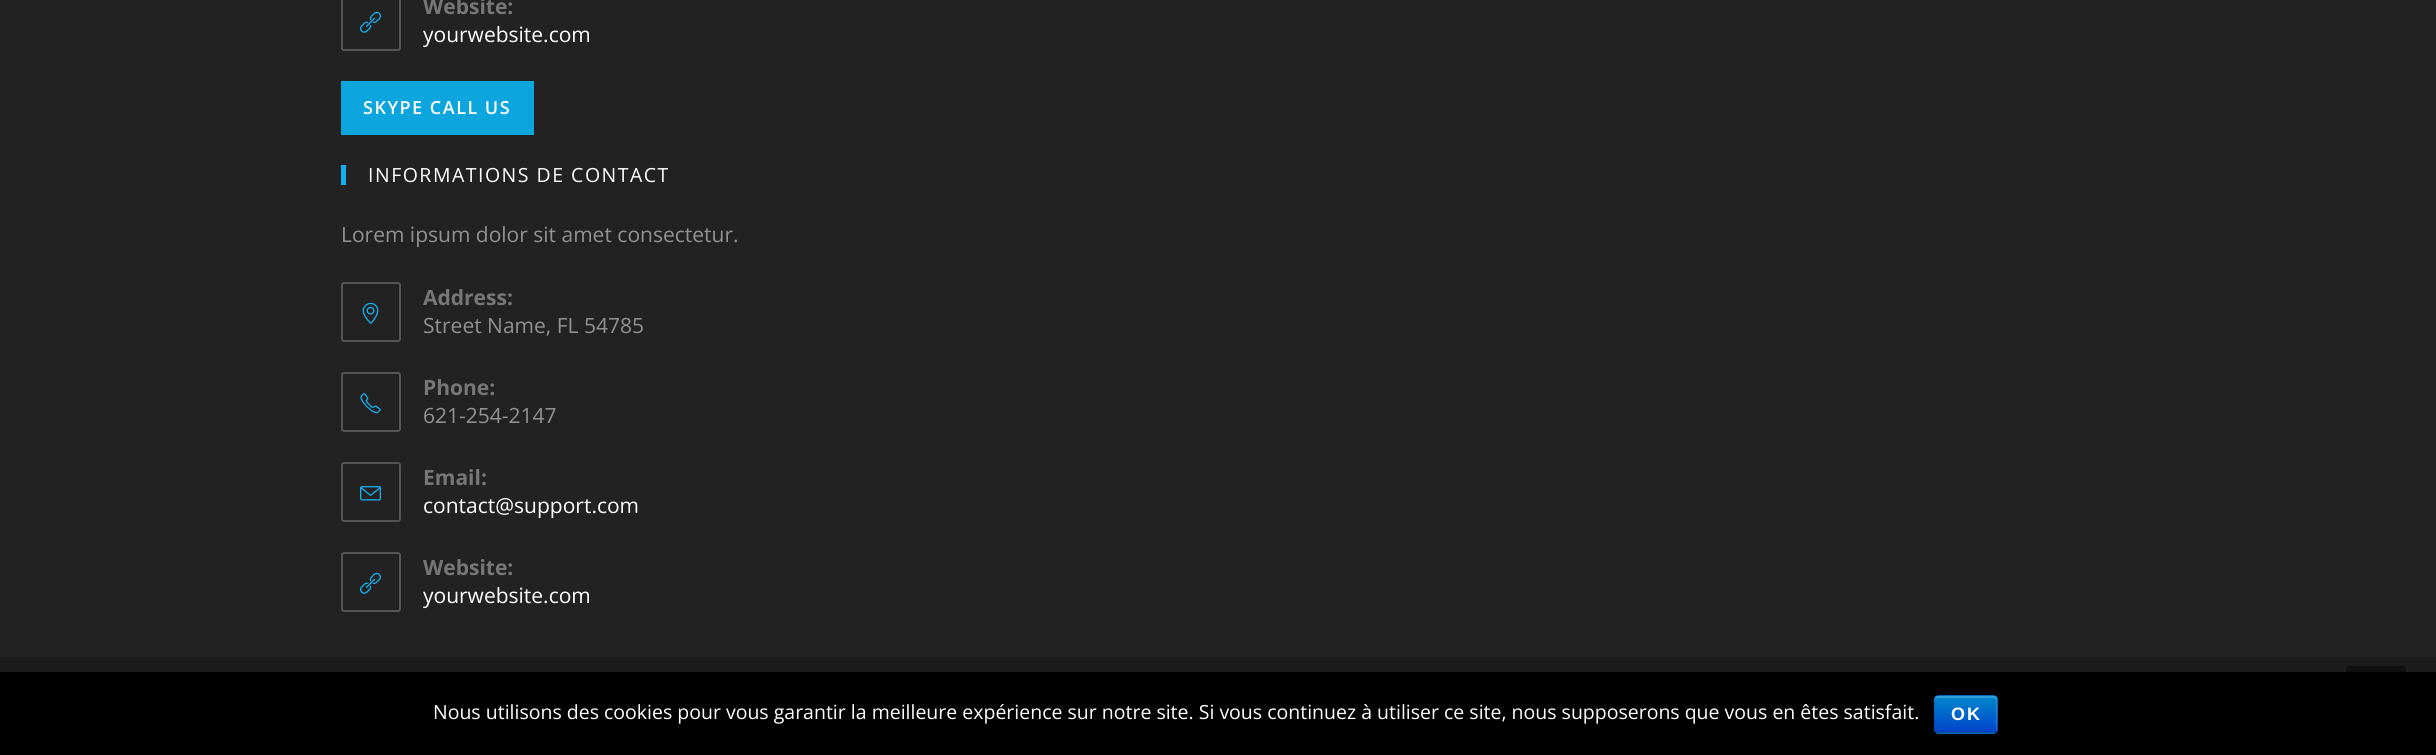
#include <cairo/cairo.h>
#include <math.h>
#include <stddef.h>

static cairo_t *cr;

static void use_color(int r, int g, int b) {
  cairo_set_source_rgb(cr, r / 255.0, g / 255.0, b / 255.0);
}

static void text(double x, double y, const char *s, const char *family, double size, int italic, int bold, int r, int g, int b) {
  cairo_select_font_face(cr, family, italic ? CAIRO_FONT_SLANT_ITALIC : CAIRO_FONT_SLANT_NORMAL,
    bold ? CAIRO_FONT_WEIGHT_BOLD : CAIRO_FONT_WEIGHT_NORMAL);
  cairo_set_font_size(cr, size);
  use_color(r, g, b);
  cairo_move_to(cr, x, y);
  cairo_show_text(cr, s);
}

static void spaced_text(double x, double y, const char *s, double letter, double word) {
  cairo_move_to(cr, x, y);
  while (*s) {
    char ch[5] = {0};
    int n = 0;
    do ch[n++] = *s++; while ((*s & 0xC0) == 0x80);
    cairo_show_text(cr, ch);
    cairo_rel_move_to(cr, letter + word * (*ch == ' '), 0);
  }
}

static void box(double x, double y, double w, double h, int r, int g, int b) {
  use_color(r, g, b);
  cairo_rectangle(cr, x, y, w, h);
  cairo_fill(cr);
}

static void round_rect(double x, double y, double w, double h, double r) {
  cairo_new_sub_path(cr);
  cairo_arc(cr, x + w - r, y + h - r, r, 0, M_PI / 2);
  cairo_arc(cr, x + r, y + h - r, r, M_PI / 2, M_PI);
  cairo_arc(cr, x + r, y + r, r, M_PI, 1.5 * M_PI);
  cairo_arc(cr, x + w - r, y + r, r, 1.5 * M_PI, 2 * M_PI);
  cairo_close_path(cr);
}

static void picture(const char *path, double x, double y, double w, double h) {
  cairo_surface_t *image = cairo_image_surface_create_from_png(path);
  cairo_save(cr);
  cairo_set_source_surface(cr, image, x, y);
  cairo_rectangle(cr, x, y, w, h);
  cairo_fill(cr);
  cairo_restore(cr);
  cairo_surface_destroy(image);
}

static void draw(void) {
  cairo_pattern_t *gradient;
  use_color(34, 34, 34);
  cairo_paint(cr);
  round_rect(342, -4, 58, 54, 2);
  use_color(85, 85, 85);
  cairo_stroke(cr);
  picture("img_01.png", 360, 11, 21, 22);
  box(341, 81, 193, 54, 12, 165, 222);
  box(341, 165, 5, 20, 19, 175, 240);
  round_rect(342, 283, 58, 58, 2);
  use_color(85, 85, 85);
  cairo_stroke(cr);
  picture("img_02.png", 362, 302, 17, 22);
  round_rect(342, 373, 58, 58, 2);
  cairo_stroke(cr);
  picture("img_03.png", 360, 393, 21, 21);
  round_rect(342, 463, 58, 58, 2);
  cairo_stroke(cr);
  picture("img_04.png", 360, 486, 21, 15);
  round_rect(342, 553, 58, 58, 2);
  cairo_stroke(cr);
  picture("img_01.png", 360, 572, 21, 22);
  box(0, 657, 2436, 15, 27, 27, 27);
  use_color(16, 16, 16);
  round_rect(2346, 666, 60, 60, 3);
  cairo_fill(cr);
  box(0, 672, 2436, 83, 0, 0, 0);
  use_color(0, 109, 204);
  round_rect(1934, 695, 64, 39, 5);
  cairo_fill(cr);
  cairo_save(cr);
  round_rect(1934, 695, 64, 39, 5);
  cairo_clip(cr);
  gradient = cairo_pattern_create_linear(1966, 696, 1966, 732);
  cairo_pattern_add_color_stop_rgba(gradient, 0, 0, 0.533, 0.8, 1);
  cairo_pattern_add_color_stop_rgba(gradient, 1, 0, 0.267, 0.8, 1);
  cairo_set_source(cr, gradient);
  cairo_pattern_destroy(gradient);
  cairo_rectangle(cr, 1934, 696, 64, 36);
  cairo_fill(cr);
  cairo_restore(cr);
  cairo_set_source_rgba(cr, 1, 1, 1, 0.2);
  cairo_new_path(cr);
  cairo_move_to(cr, 1938, 698);
  cairo_line_to(cr, 1985, 698);
  cairo_curve_to(cr, 1999, 698, 1996, 696, 1996, 710);
  cairo_line_to(cr, 1996, 731);
  cairo_curve_to(cr, 1997, 731, 1997, 730, 1997, 729);
  cairo_line_to(cr, 1997, 699);
  cairo_curve_to(cr, 1997, 697, 1996, 696, 1994, 696);
  cairo_line_to(cr, 1938, 696);
  cairo_curve_to(cr, 1936, 696, 1935, 697, 1935, 699);
  cairo_line_to(cr, 1935, 700);
  cairo_curve_to(cr, 1935, 699, 1936, 698, 1938, 698);
  cairo_close_path(cr);
  cairo_fill(cr);
  cairo_new_path(cr);
  cairo_move_to(cr, 1996, 731.5);
  cairo_line_to(cr, 1994, 732.5);
  cairo_line_to(cr, 1937.5, 732.5);
  cairo_line_to(cr, 1935.5, 731.5);
  cairo_set_source_rgba(cr, 0, 0, 0, 0.25);
  cairo_set_line_width(cr, 1.5);
  cairo_stroke(cr);
  cairo_new_path(cr);
  cairo_move_to(cr, 1935.5, 731.5);
  cairo_curve_to(cr, 1933.5, 730, 1934, 726, 1934, 724);
  cairo_line_to(cr, 1934, 714);
  cairo_curve_to(cr, 1934, 695, 1930, 695, 1947, 695);
  cairo_line_to(cr, 1984, 695);
  cairo_curve_to(cr, 2001.5, 695, 1997, 695, 1997, 714);
  cairo_line_to(cr, 1997, 724);
  cairo_curve_to(cr, 1997, 726, 1998, 730, 1996, 731.5);
  cairo_set_source_rgba(cr, 0, 0, 0, 0.1);
  cairo_stroke(cr);
  text(423, 14, "Website:", "Open Sans", 21, 0, 1, 119, 119, 119);
  text(423, 42, "yourwebsite.com", "Open Sans", 21, 0, 0, 255, 255, 255);
  cairo_select_font_face(cr, "Open Sans SemiBold", CAIRO_FONT_SLANT_NORMAL, CAIRO_FONT_WEIGHT_NORMAL);
  cairo_set_font_size(cr, 18);
  spaced_text(363, 114, "SKYPE CALL US", 1.5, 0);
  cairo_select_font_face(cr, "Open Sans", CAIRO_FONT_SLANT_NORMAL, CAIRO_FONT_WEIGHT_NORMAL);
  cairo_set_font_size(cr, 19.5);
  spaced_text(368, 182, "INFORMATIONS DE CONTACT", 1.5, 0);
  text(341, 242, "Lorem ipsum dolor sit amet consectetur.", "Open Sans", 21, 0, 0, 146, 146, 146);
  text(423, 305, "Address:", "Open Sans", 21, 0, 1, 119, 119, 119);
  text(423, 333, "Street Name, FL 54785", "Open Sans", 21, 0, 0, 146, 146, 146);
  text(423, 395, "Phone:", "Open Sans", 21, 0, 1, 119, 119, 119);
  text(423, 423, "621-254-2147", "Open Sans", 21, 0, 0, 146, 146, 146);
  text(423, 485, "Email:", "Open Sans", 21, 0, 1, 119, 119, 119);
  text(423, 513, "contact@support.com", "Open Sans", 21, 0, 0, 255, 255, 255);
  text(423, 575, "Website:", "Open Sans", 21, 0, 1, 119, 119, 119);
  text(423, 603, "yourwebsite.com", "Open Sans", 21, 0, 0, 255, 255, 255);
  text(433, 719, "Nous utilisons des cookies pour vous garantir la meilleure expérience sur notre site. Si vous continuez à utiliser ce site, nous supposerons que vous en êtes satisfait.", "Open Sans", 19.5, 0, 0, 255, 255, 255);
  cairo_select_font_face(cr, "Liberation Sans", CAIRO_FONT_SLANT_NORMAL, CAIRO_FONT_WEIGHT_BOLD);
  cairo_set_font_size(cr, 18);
  spaced_text(1951, 720, "OK", 2, 0);
}

int main(void) {
  cairo_surface_t *surface = cairo_image_surface_create(CAIRO_FORMAT_RGB24, 2436, 755);
  cr = cairo_create(surface);
  cairo_font_options_t *options = cairo_font_options_create();
  cairo_font_options_set_hint_metrics(options, CAIRO_HINT_METRICS_OFF);
  cairo_font_options_set_hint_style(options, CAIRO_HINT_STYLE_NONE);
  cairo_set_font_options(cr, options);
  cairo_set_miter_limit(cr, 4);
  draw();
  cairo_surface_write_to_png(surface, "out.png");
  cairo_font_options_destroy(options);
  cairo_destroy(cr);
  cairo_surface_destroy(surface);
  return 0;
}
